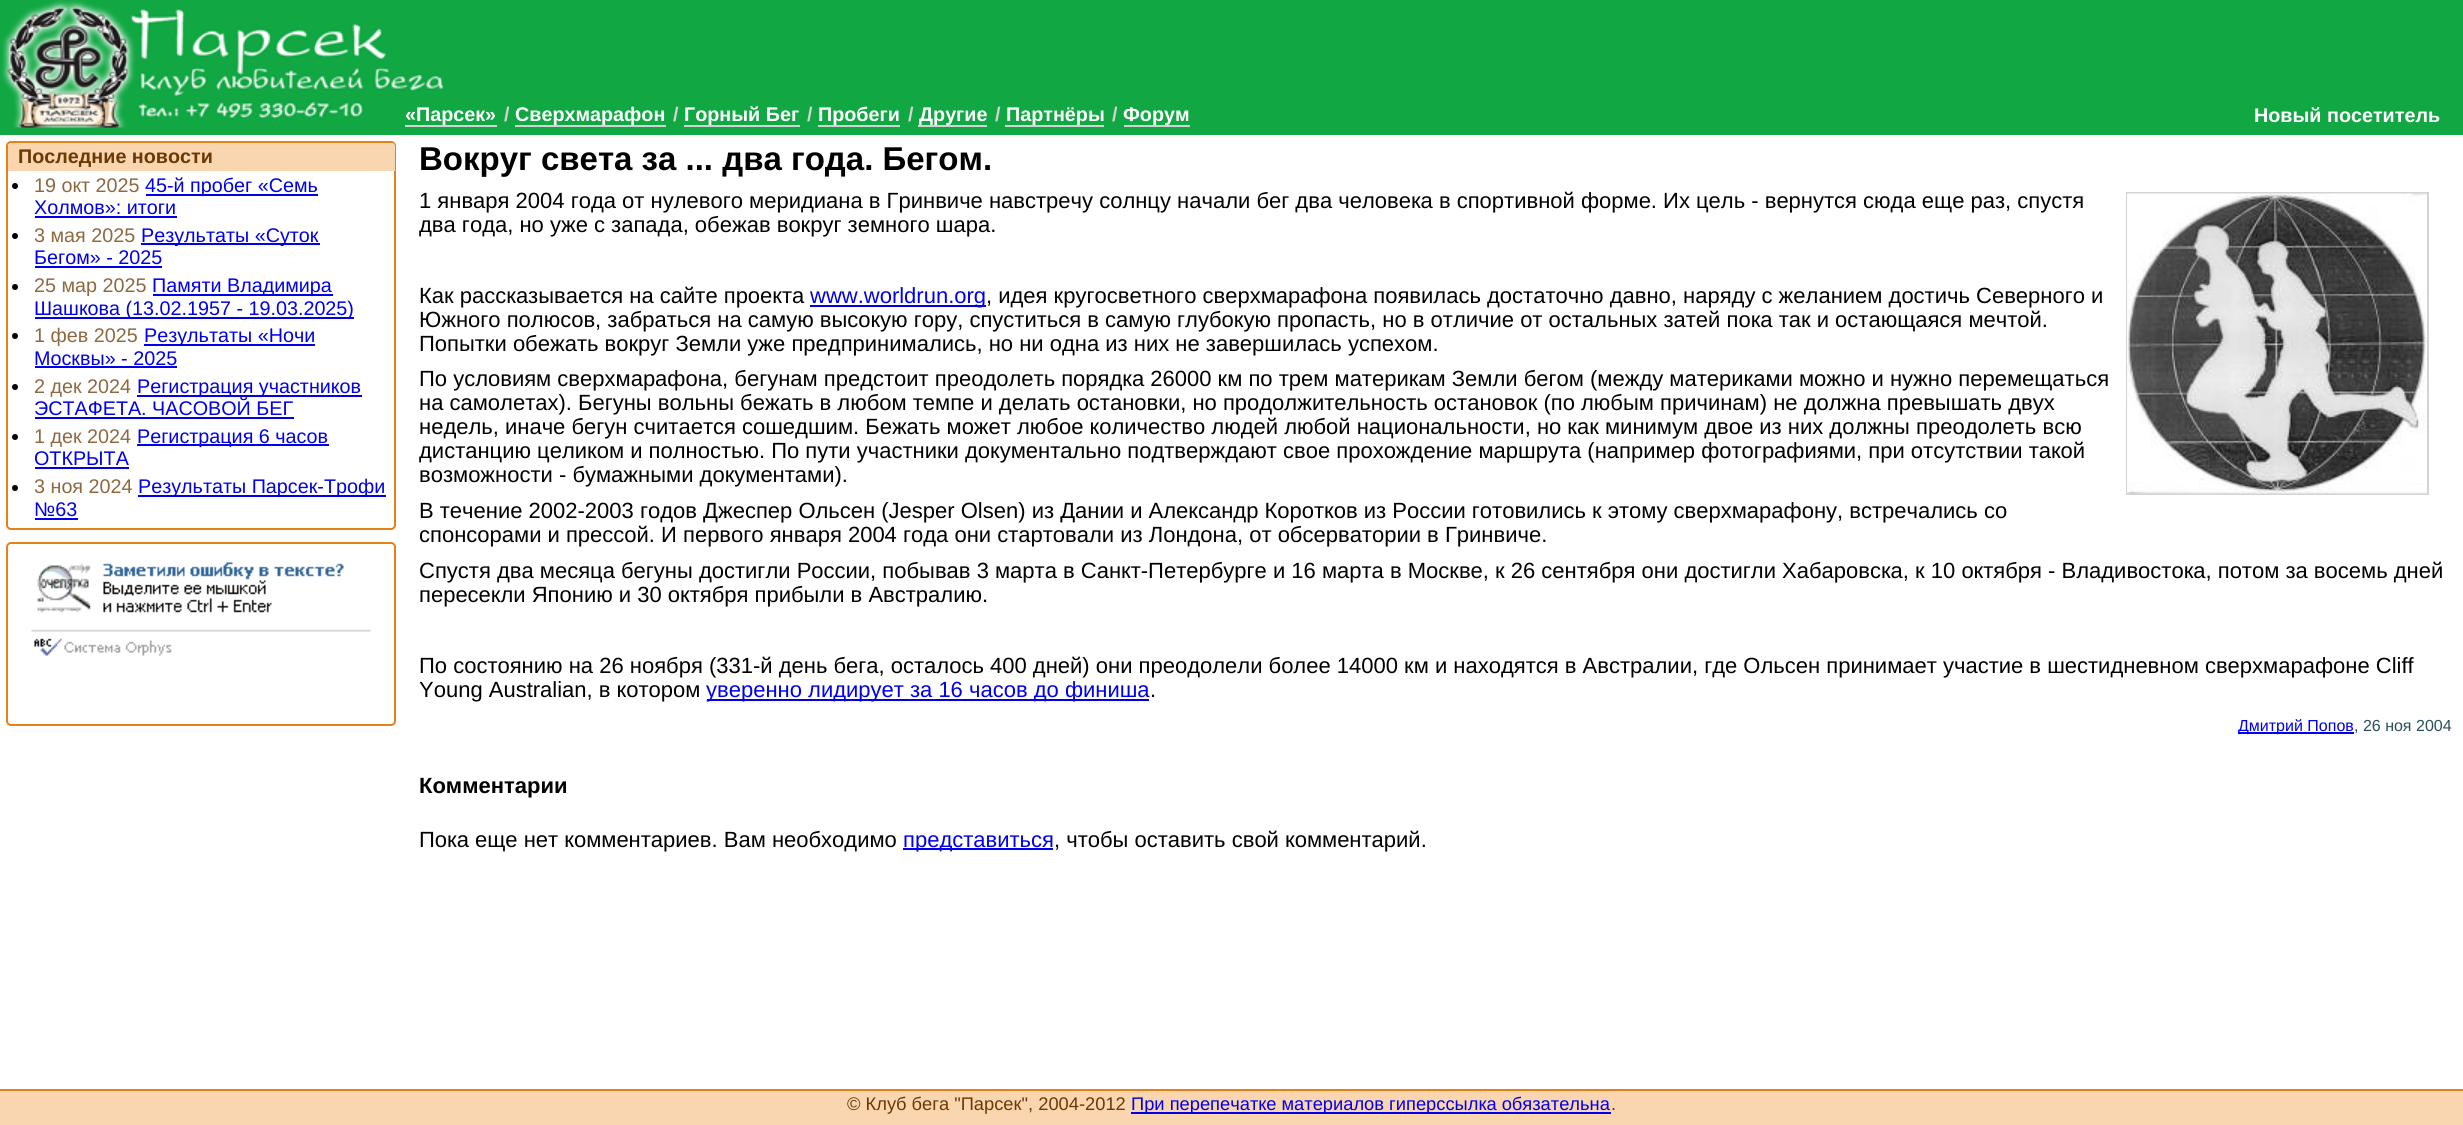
#include <cairo/cairo.h>
#include <math.h>
#include <stddef.h>

static cairo_t *cr;

static void use_color(int r, int g, int b) {
  cairo_set_source_rgb(cr, r / 255.0, g / 255.0, b / 255.0);
}

static void text(double x, double y, const char *s, const char *family, double size, int italic, int bold, int r, int g, int b) {
  cairo_select_font_face(cr, family, italic ? CAIRO_FONT_SLANT_ITALIC : CAIRO_FONT_SLANT_NORMAL,
    bold ? CAIRO_FONT_WEIGHT_BOLD : CAIRO_FONT_WEIGHT_NORMAL);
  cairo_set_font_size(cr, size);
  use_color(r, g, b);
  cairo_move_to(cr, x, y);
  cairo_show_text(cr, s);
}

static void box(double x, double y, double w, double h, int r, int g, int b) {
  use_color(r, g, b);
  cairo_rectangle(cr, x, y, w, h);
  cairo_fill(cr);
}

static void round_rect(double x, double y, double w, double h, double r) {
  cairo_new_sub_path(cr);
  cairo_arc(cr, x + w - r, y + h - r, r, 0, M_PI / 2);
  cairo_arc(cr, x + r, y + h - r, r, M_PI / 2, M_PI);
  cairo_arc(cr, x + r, y + r, r, M_PI, 1.5 * M_PI);
  cairo_arc(cr, x + w - r, y + r, r, 1.5 * M_PI, 2 * M_PI);
  cairo_close_path(cr);
}

static void picture(const char *path, double x, double y, double w, double h) {
  cairo_surface_t *image = cairo_image_surface_create_from_png(path);
  cairo_save(cr);
  cairo_set_source_surface(cr, image, x, y);
  cairo_rectangle(cr, x, y, w, h);
  cairo_fill(cr);
  cairo_restore(cr);
  cairo_surface_destroy(image);
}

static void draw(void) {
  use_color(255, 255, 255);
  cairo_paint(cr);
  box(0, 0, 2463, 135, 17, 168, 68);
  picture("img_01.png", 1, 0, 443, 128);
  box(405, 125, 92, 2, 211, 211, 211);
  box(515, 125, 151, 2, 211, 211, 211);
  box(684, 125, 116, 2, 211, 211, 211);
  box(818, 125, 82, 2, 211, 211, 211);
  box(918, 125, 69, 2, 211, 211, 211);
  box(1005, 125, 99, 2, 211, 211, 211);
  box(1124, 125, 66, 2, 211, 211, 211);
  round_rect(7, 142, 388, 387, 4);
  use_color(230, 129, 23);
  cairo_stroke(cr);
  use_color(249, 213, 176);
  cairo_new_path(cr);
  cairo_move_to(cr, 11, 143);
  cairo_line_to(cr, 392, 143);
  cairo_curve_to(cr, 393.5, 143, 395, 144.5, 395, 146);
  cairo_line_to(cr, 395, 171);
  cairo_line_to(cr, 8, 171);
  cairo_line_to(cr, 8, 146);
  cairo_curve_to(cr, 8, 144.5, 9.5, 143, 11, 143);
  cairo_close_path(cr);
  cairo_fill(cr);
  use_color(0, 0, 0);
  cairo_arc(cr, 15, 186, 3, 0, 2 * M_PI);
  cairo_fill(cr);
  box(146, 194, 172, 2, 0, 0, 238);
  box(35, 216, 142, 2, 0, 0, 238);
  use_color(0, 0, 0);
  cairo_arc(cr, 15, 236, 3, 0, 2 * M_PI);
  cairo_fill(cr);
  box(141, 243, 179, 2, 0, 0, 238);
  box(35, 266, 127, 2, 0, 0, 238);
  use_color(0, 0, 0);
  cairo_arc(cr, 15, 287, 3, 0, 2 * M_PI);
  cairo_fill(cr);
  box(153, 294, 180, 2, 0, 0, 238);
  box(35, 317, 319, 2, 0, 0, 238);
  use_color(0, 0, 0);
  cairo_arc(cr, 15, 336, 3, 0, 2 * M_PI);
  cairo_fill(cr);
  box(144, 344, 171, 2, 0, 0, 238);
  box(35, 366, 142, 2, 0, 0, 238);
  use_color(0, 0, 0);
  cairo_arc(cr, 15, 387, 3, 0, 2 * M_PI);
  cairo_fill(cr);
  box(137, 395, 225, 2, 0, 0, 238);
  box(35, 417, 259, 2, 0, 0, 238);
  use_color(0, 0, 0);
  cairo_arc(cr, 15, 437, 3, 0, 2 * M_PI);
  cairo_fill(cr);
  box(137, 444, 192, 2, 0, 0, 238);
  box(35, 467, 94, 2, 0, 0, 238);
  use_color(0, 0, 0);
  cairo_arc(cr, 15, 488, 3, 0, 2 * M_PI);
  cairo_fill(cr);
  box(138, 495, 248, 2, 0, 0, 238);
  box(35, 518, 43, 2, 0, 0, 238);
  round_rect(7, 543, 388, 182, 4);
  use_color(230, 129, 23);
  cairo_stroke(cr);
  picture("img_02.png", 31, 562, 340, 94);
  cairo_rectangle(cr, 2127, 193, 301, 301);
  use_color(211, 211, 211);
  cairo_stroke(cr);
  picture("img_03.png", 2127, 193, 300, 301);
  box(810, 305, 176, 2, 0, 0, 238);
  box(707, 699, 442, 2, 0, 0, 238);
  box(2238, 732, 116, 2, 0, 0, 238);
  box(903, 848, 150, 2, 0, 0, 238);
  box(0, 1091, 2463, 34, 249, 213, 176);
  box(0, 1089, 2463, 2, 230, 129, 23);
  box(1131, 1112, 480, 2, 0, 0, 238);
  text(405, 121, "«Парсек»", "Liberation Sans", 19.75, 0, 1, 255, 255, 255);
  text(504, 121, "/", "Liberation Sans", 19.75, 0, 1, 211, 211, 211);
  text(515, 121, "Сверхмарафон", "Liberation Sans", 19.75, 0, 1, 255, 255, 255);
  text(673, 121, "/", "Liberation Sans", 19.75, 0, 1, 211, 211, 211);
  text(684, 121, "Горный Бег", "Liberation Sans", 19.75, 0, 1, 255, 255, 255);
  text(807, 121, "/", "Liberation Sans", 19.75, 0, 1, 211, 211, 211);
  text(818, 121, "Пробеги", "Liberation Sans", 19.75, 0, 1, 255, 255, 255);
  text(908, 121, "/", "Liberation Sans", 19.75, 0, 1, 211, 211, 211);
  text(919, 121, "Другие", "Liberation Sans", 19.75, 0, 1, 255, 255, 255);
  text(995, 121, "/", "Liberation Sans", 19.75, 0, 1, 211, 211, 211);
  text(1006, 121, "Партнёры", "Liberation Sans", 19.75, 0, 1, 255, 255, 255);
  text(1112, 121, "/", "Liberation Sans", 19.75, 0, 1, 211, 211, 211);
  text(1123, 121, "Форум", "Liberation Sans", 19.75, 0, 1, 255, 255, 255);
  text(2254, 122, "Новый посетитель", "Liberation Sans", 19.75, 0, 1, 255, 255, 255);
  text(18, 163, "Последние новости", "Liberation Sans", 19.75, 0, 1, 109, 57, 3);
  text(34, 192, "19 окт 2025", "Liberation Sans", 19.75, 0, 0, 143, 104, 63);
  text(145, 192, "45-й пробег «Семь", "Liberation Sans", 19.75, 0, 0, 0, 0, 238);
  text(34, 214, "Холмов»: итоги", "Liberation Sans", 19.75, 0, 0, 0, 0, 238);
  text(34, 242, "3 мая 2025", "Liberation Sans", 19.75, 0, 0, 143, 104, 63);
  text(141, 242, "Результаты «Суток", "Liberation Sans", 19.75, 0, 0, 0, 0, 238);
  text(34, 264, "Бегом» - 2025", "Liberation Sans", 19.75, 0, 0, 0, 0, 238);
  text(34, 292, "25 мар 2025", "Liberation Sans", 19.75, 0, 0, 143, 104, 63);
  text(152, 292, "Памяти Владимира", "Liberation Sans", 19.75, 0, 0, 0, 0, 238);
  text(34, 315, "Шашкова (13.02.1957 - 19.03.2025)", "Liberation Sans", 19.75, 0, 0, 0, 0, 238);
  text(34, 342, "1 фев 2025", "Liberation Sans", 19.75, 0, 0, 143, 104, 63);
  text(144, 342, "Результаты «Ночи", "Liberation Sans", 19.75, 0, 0, 0, 0, 238);
  text(34, 365, "Москвы» - 2025", "Liberation Sans", 19.75, 0, 0, 0, 0, 238);
  text(34, 393, "2 дек 2024", "Liberation Sans", 19.75, 0, 0, 143, 104, 63);
  text(137, 393, "Регистрация участников", "Liberation Sans", 19.75, 0, 0, 0, 0, 238);
  text(34, 415, "ЭСТАФЕТА. ЧАСОВОЙ БЕГ", "Liberation Sans", 19.75, 0, 0, 0, 0, 238);
  text(34, 443, "1 дек 2024", "Liberation Sans", 19.75, 0, 0, 143, 104, 63);
  text(137, 443, "Регистрация 6 часов", "Liberation Sans", 19.75, 0, 0, 0, 0, 238);
  text(34, 465, "ОТКРЫТА", "Liberation Sans", 19.75, 0, 0, 0, 0, 238);
  text(34, 493, "3 ноя 2024", "Liberation Sans", 19.75, 0, 0, 143, 104, 63);
  text(138, 493, "Результаты Парсек-Трофи", "Liberation Sans", 19.75, 0, 0, 0, 0, 238);
  text(34, 516, "№63", "Liberation Sans", 19.75, 0, 0, 0, 0, 238);
  text(419, 170, "Вокруг света за ... два года. Бегом.", "Liberation Sans", 33, 0, 1, 0, 0, 0);
  text(419, 208, "1 января 2004 года от нулевого меридиана в Гринвиче навстречу солнцу начали бег два человека в спортивной форме. Их цель - вернутся сюда еще раз, спустя", "Liberation Sans", 22, 0, 0, 0, 0, 0);
  text(419, 232, "два года, но уже с запада, обежав вокруг земного шара.", "Liberation Sans", 22, 0, 0, 0, 0, 0);
  text(419, 303, "Как рассказывается на сайте проекта", "Liberation Sans", 22, 0, 0, 0, 0, 0);
  text(810, 303, "www.worldrun.org", "Liberation Sans", 22, 0, 0, 0, 0, 238);
  text(986, 303, ", идея кругосветного сверхмарафона появилась достаточно давно, наряду с желанием достичь Северного и", "Liberation Sans", 22, 0, 0, 0, 0, 0);
  text(419, 327, "Южного полюсов, забраться на самую высокую гору, спуститься в самую глубокую пропасть, но в отличие от остальных затей пока так и остающаяся мечтой.", "Liberation Sans", 22, 0, 0, 0, 0, 0);
  text(419, 351, "Попытки обежать вокруг Земли уже предпринимались, но ни одна из них не завершилась успехом.", "Liberation Sans", 22, 0, 0, 0, 0, 0);
  text(419, 386, "По условиям сверхмарафона, бегунам предстоит преодолеть порядка 26000 км по трем материкам Земли бегом (между материками можно и нужно перемещаться", "Liberation Sans", 22, 0, 0, 0, 0, 0);
  text(419, 410, "на самолетах). Бегуны вольны бежать в любом темпе и делать остановки, но продолжительность остановок (по любым причинам) не должна превышать двух", "Liberation Sans", 22, 0, 0, 0, 0, 0);
  text(419, 434, "недель, иначе бегун считается сошедшим. Бежать может любое количество людей любой национальности, но как минимум двое из них должны преодолеть всю", "Liberation Sans", 22, 0, 0, 0, 0, 0);
  text(419, 458, "дистанцию целиком и полностью. По пути участники документально подтверждают свое прохождение маршрута (например фотографиями, при отсутствии такой", "Liberation Sans", 22, 0, 0, 0, 0, 0);
  text(419, 482, "возможности - бумажными документами).", "Liberation Sans", 22, 0, 0, 0, 0, 0);
  text(419, 518, "В течение 2002-2003 годов Джеспер Ольсен (Jesper Olsen) из Дании и Александр Коротков из России готовились к этому сверхмарафону, встречались со", "Liberation Sans", 22, 0, 0, 0, 0, 0);
  text(419, 542, "спонсорами и прессой. И первого января 2004 года они стартовали из Лондона, от обсерватории в Гринвиче.", "Liberation Sans", 22, 0, 0, 0, 0, 0);
  text(419, 578, "Спустя два месяца бегуны достигли России, побывав 3 марта в Санкт-Петербурге и 16 марта в Москве, к 26 сентября они достигли Хабаровска, к 10 октября - Владивостока, потом за восемь дней", "Liberation Sans", 22, 0, 0, 0, 0, 0);
  text(419, 602, "пересекли Японию и 30 октября прибыли в Австралию.", "Liberation Sans", 22, 0, 0, 0, 0, 0);
  text(419, 673, "По состоянию на 26 ноября (331-й день бега, осталось 400 дней) они преодолели более 14000 км и находятся в Австралии, где Ольсен принимает участие в шестидневном сверхмарафоне Cliff", "Liberation Sans", 22, 0, 0, 0, 0, 0);
  text(419, 697, "Young Australian, в котором", "Liberation Sans", 22, 0, 0, 0, 0, 0);
  text(706, 697, "уверенно лидирует за 16 часов до финиша", "Liberation Sans", 22, 0, 0, 0, 0, 238);
  text(1150, 697, ".", "Liberation Sans", 22, 0, 0, 0, 0, 0);
  text(2238, 731, "Дмитрий Попов", "Liberation Sans", 16, 0, 0, 0, 0, 238);
  text(2354, 731, ", 26 ноя 2004", "Liberation Sans", 16, 0, 0, 41, 78, 90);
  text(419, 793, "Комментарии", "Liberation Sans", 22, 0, 1, 0, 0, 0);
  text(419, 847, "Пока еще нет комментариев. Вам необходимо", "Liberation Sans", 22, 0, 0, 0, 0, 0);
  text(903, 847, "представиться", "Liberation Sans", 22, 0, 0, 0, 0, 238);
  text(1054, 847, ", чтобы оставить свой комментарий.", "Liberation Sans", 22, 0, 0, 0, 0, 0);
  text(847, 1110, "© Клуб бега \"Парсек\", 2004-2012", "Liberation Sans", 18.3, 0, 0, 109, 57, 3);
  text(1131, 1110, "При перепечатке материалов гиперссылка обязательна", "Liberation Sans", 18.3, 0, 0, 0, 0, 238);
  text(1611, 1110, ".", "Liberation Sans", 18.3, 0, 0, 109, 57, 3);
}

int main(void) {
  cairo_surface_t *surface = cairo_image_surface_create(CAIRO_FORMAT_RGB24, 2463, 1125);
  cr = cairo_create(surface);
  cairo_font_options_t *options = cairo_font_options_create();
  cairo_font_options_set_hint_metrics(options, CAIRO_HINT_METRICS_OFF);
  cairo_font_options_set_hint_style(options, CAIRO_HINT_STYLE_NONE);
  cairo_set_font_options(cr, options);
  cairo_set_miter_limit(cr, 4);
  draw();
  cairo_surface_write_to_png(surface, "out.png");
  cairo_font_options_destroy(options);
  cairo_destroy(cr);
  cairo_surface_destroy(surface);
  return 0;
}
